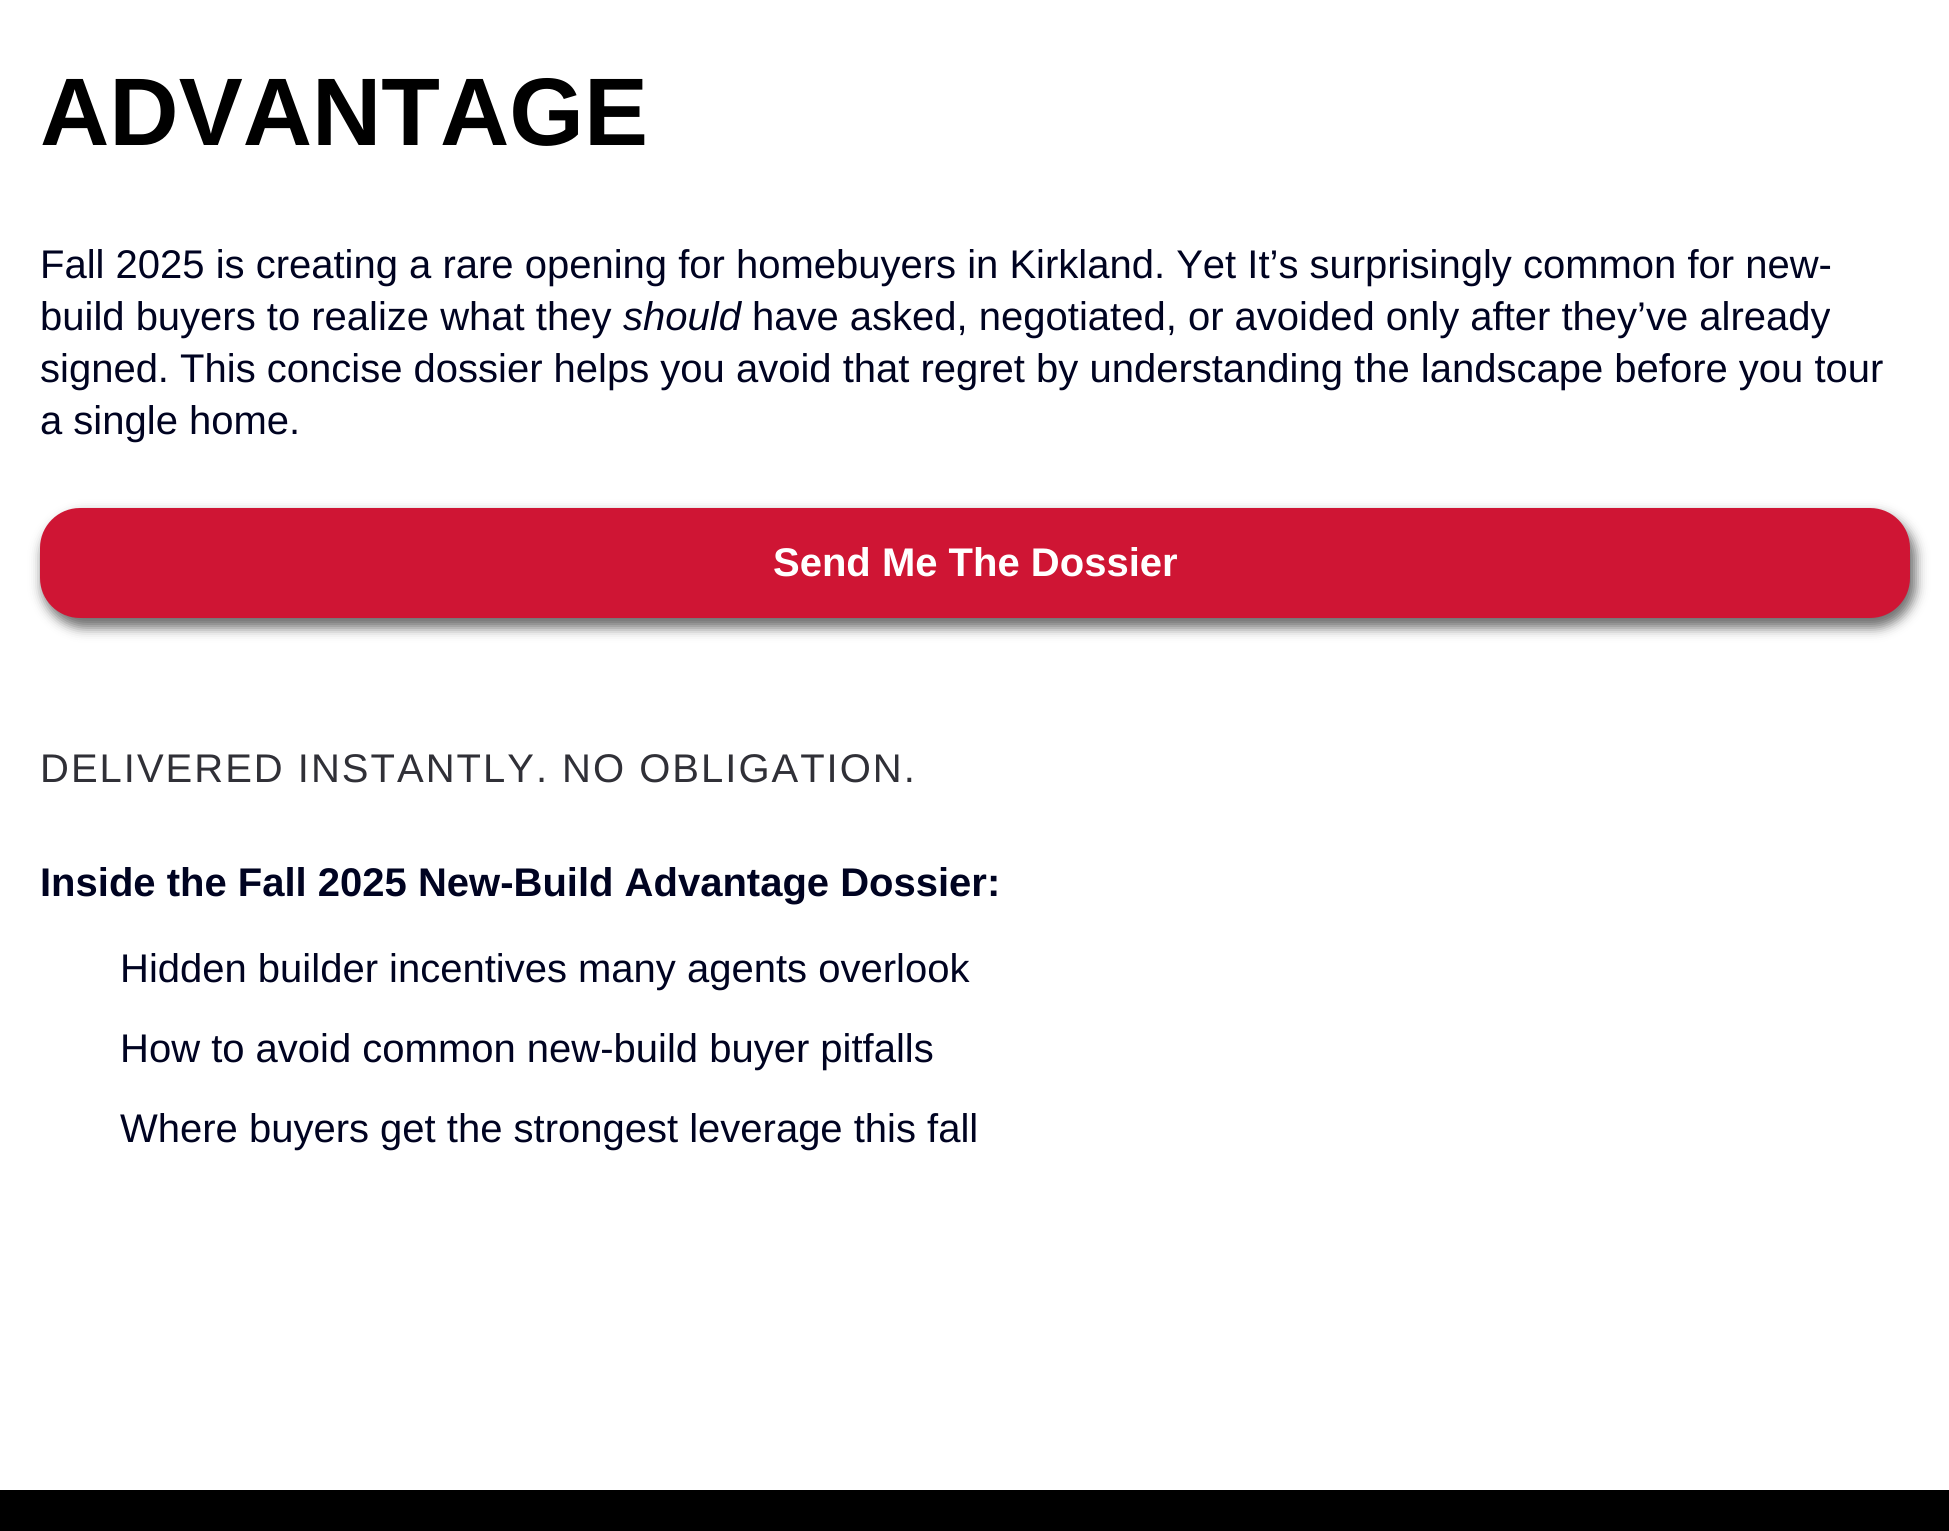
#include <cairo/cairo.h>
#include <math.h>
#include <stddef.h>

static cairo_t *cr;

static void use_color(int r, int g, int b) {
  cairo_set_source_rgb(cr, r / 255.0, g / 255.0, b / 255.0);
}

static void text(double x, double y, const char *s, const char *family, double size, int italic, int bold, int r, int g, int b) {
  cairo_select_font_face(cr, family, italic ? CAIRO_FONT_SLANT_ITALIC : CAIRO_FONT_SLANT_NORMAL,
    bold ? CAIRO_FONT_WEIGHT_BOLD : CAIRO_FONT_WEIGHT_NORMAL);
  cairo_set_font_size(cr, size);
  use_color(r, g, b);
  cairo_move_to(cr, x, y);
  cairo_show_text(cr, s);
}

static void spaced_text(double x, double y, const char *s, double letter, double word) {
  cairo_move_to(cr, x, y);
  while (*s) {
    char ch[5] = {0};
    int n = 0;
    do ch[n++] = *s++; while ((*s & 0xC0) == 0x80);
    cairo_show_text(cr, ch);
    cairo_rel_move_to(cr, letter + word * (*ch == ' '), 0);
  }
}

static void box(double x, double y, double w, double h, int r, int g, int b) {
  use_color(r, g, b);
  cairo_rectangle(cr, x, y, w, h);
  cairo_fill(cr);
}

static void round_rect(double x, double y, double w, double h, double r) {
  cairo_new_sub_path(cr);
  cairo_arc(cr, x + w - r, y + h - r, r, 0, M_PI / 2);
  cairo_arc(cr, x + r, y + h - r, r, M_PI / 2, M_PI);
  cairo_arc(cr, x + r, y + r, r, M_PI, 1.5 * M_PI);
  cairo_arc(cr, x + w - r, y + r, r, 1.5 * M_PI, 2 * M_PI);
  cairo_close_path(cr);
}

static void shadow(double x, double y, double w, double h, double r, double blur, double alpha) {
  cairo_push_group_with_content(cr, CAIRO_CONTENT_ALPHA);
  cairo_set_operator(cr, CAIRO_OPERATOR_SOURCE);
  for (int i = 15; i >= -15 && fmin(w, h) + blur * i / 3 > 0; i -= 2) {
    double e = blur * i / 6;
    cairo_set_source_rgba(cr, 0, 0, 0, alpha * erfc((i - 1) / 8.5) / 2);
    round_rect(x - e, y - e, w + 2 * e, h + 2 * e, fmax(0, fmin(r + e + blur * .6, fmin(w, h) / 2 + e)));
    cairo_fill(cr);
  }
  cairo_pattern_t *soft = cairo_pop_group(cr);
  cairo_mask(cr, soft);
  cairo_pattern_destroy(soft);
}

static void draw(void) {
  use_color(255, 255, 255);
  cairo_paint(cr);
  use_color(112, 112, 112);
  shadow(42, 514, 1874, 114, 42, 6, 1);
  use_color(207, 21, 52);
  round_rect(40, 508, 1870, 110, 40);
  cairo_fill(cr);
  box(0, 1490, 1949, 41, 0, 0, 0);
  text(40, 145, "ADVANTAGE", "Liberation Sans", 96, 0, 1, 0, 0, 0);
  text(40, 278, "Fall 2025 is creating a rare opening for homebuyers in Kirkland. Yet It’s surprisingly common for new-", "Liberation Sans", 40, 0, 0, 0, 3, 33);
  text(40, 330, "build buyers to realize what they", "Liberation Sans", 40, 0, 0, 0, 3, 33);
  text(623, 330, "should", "Liberation Sans", 40, 1, 0, 0, 3, 33);
  text(752, 330, "have asked, negotiated, or avoided only after they’ve already", "Liberation Sans", 40, 0, 0, 0, 3, 33);
  text(40, 382, "signed. This concise dossier helps you avoid that regret by understanding the landscape before you tour", "Liberation Sans", 40, 0, 0, 0, 3, 33);
  text(40, 434, "a single home.", "Liberation Sans", 40, 0, 0, 0, 3, 33);
  text(773, 576, "Send Me The Dossier", "Liberation Sans", 40, 0, 1, 255, 255, 255);
  cairo_select_font_face(cr, "Liberation Sans", CAIRO_FONT_SLANT_NORMAL, CAIRO_FONT_WEIGHT_NORMAL);
  use_color(48, 48, 55);
  spaced_text(40, 782, "DELIVERED INSTANTLY. NO OBLIGATION.", 2, 0);
  text(40, 896, "Inside the Fall 2025 New-Build Advantage Dossier:", "Liberation Sans", 40, 0, 1, 0, 3, 33);
  text(120, 982, "Hidden builder incentives many agents overlook", "Liberation Sans", 40, 0, 0, 0, 3, 33);
  text(120, 1062, "How to avoid common new-build buyer pitfalls", "Liberation Sans", 40, 0, 0, 0, 3, 33);
  text(120, 1142, "Where buyers get the strongest leverage this fall", "Liberation Sans", 40, 0, 0, 0, 3, 33);
}

int main(void) {
  cairo_surface_t *surface = cairo_image_surface_create(CAIRO_FORMAT_RGB24, 1949, 1531);
  cr = cairo_create(surface);
  cairo_font_options_t *options = cairo_font_options_create();
  cairo_font_options_set_hint_metrics(options, CAIRO_HINT_METRICS_OFF);
  cairo_font_options_set_hint_style(options, CAIRO_HINT_STYLE_NONE);
  cairo_set_font_options(cr, options);
  cairo_set_miter_limit(cr, 4);
  draw();
  cairo_surface_write_to_png(surface, "out.png");
  cairo_font_options_destroy(options);
  cairo_destroy(cr);
  cairo_surface_destroy(surface);
  return 0;
}
